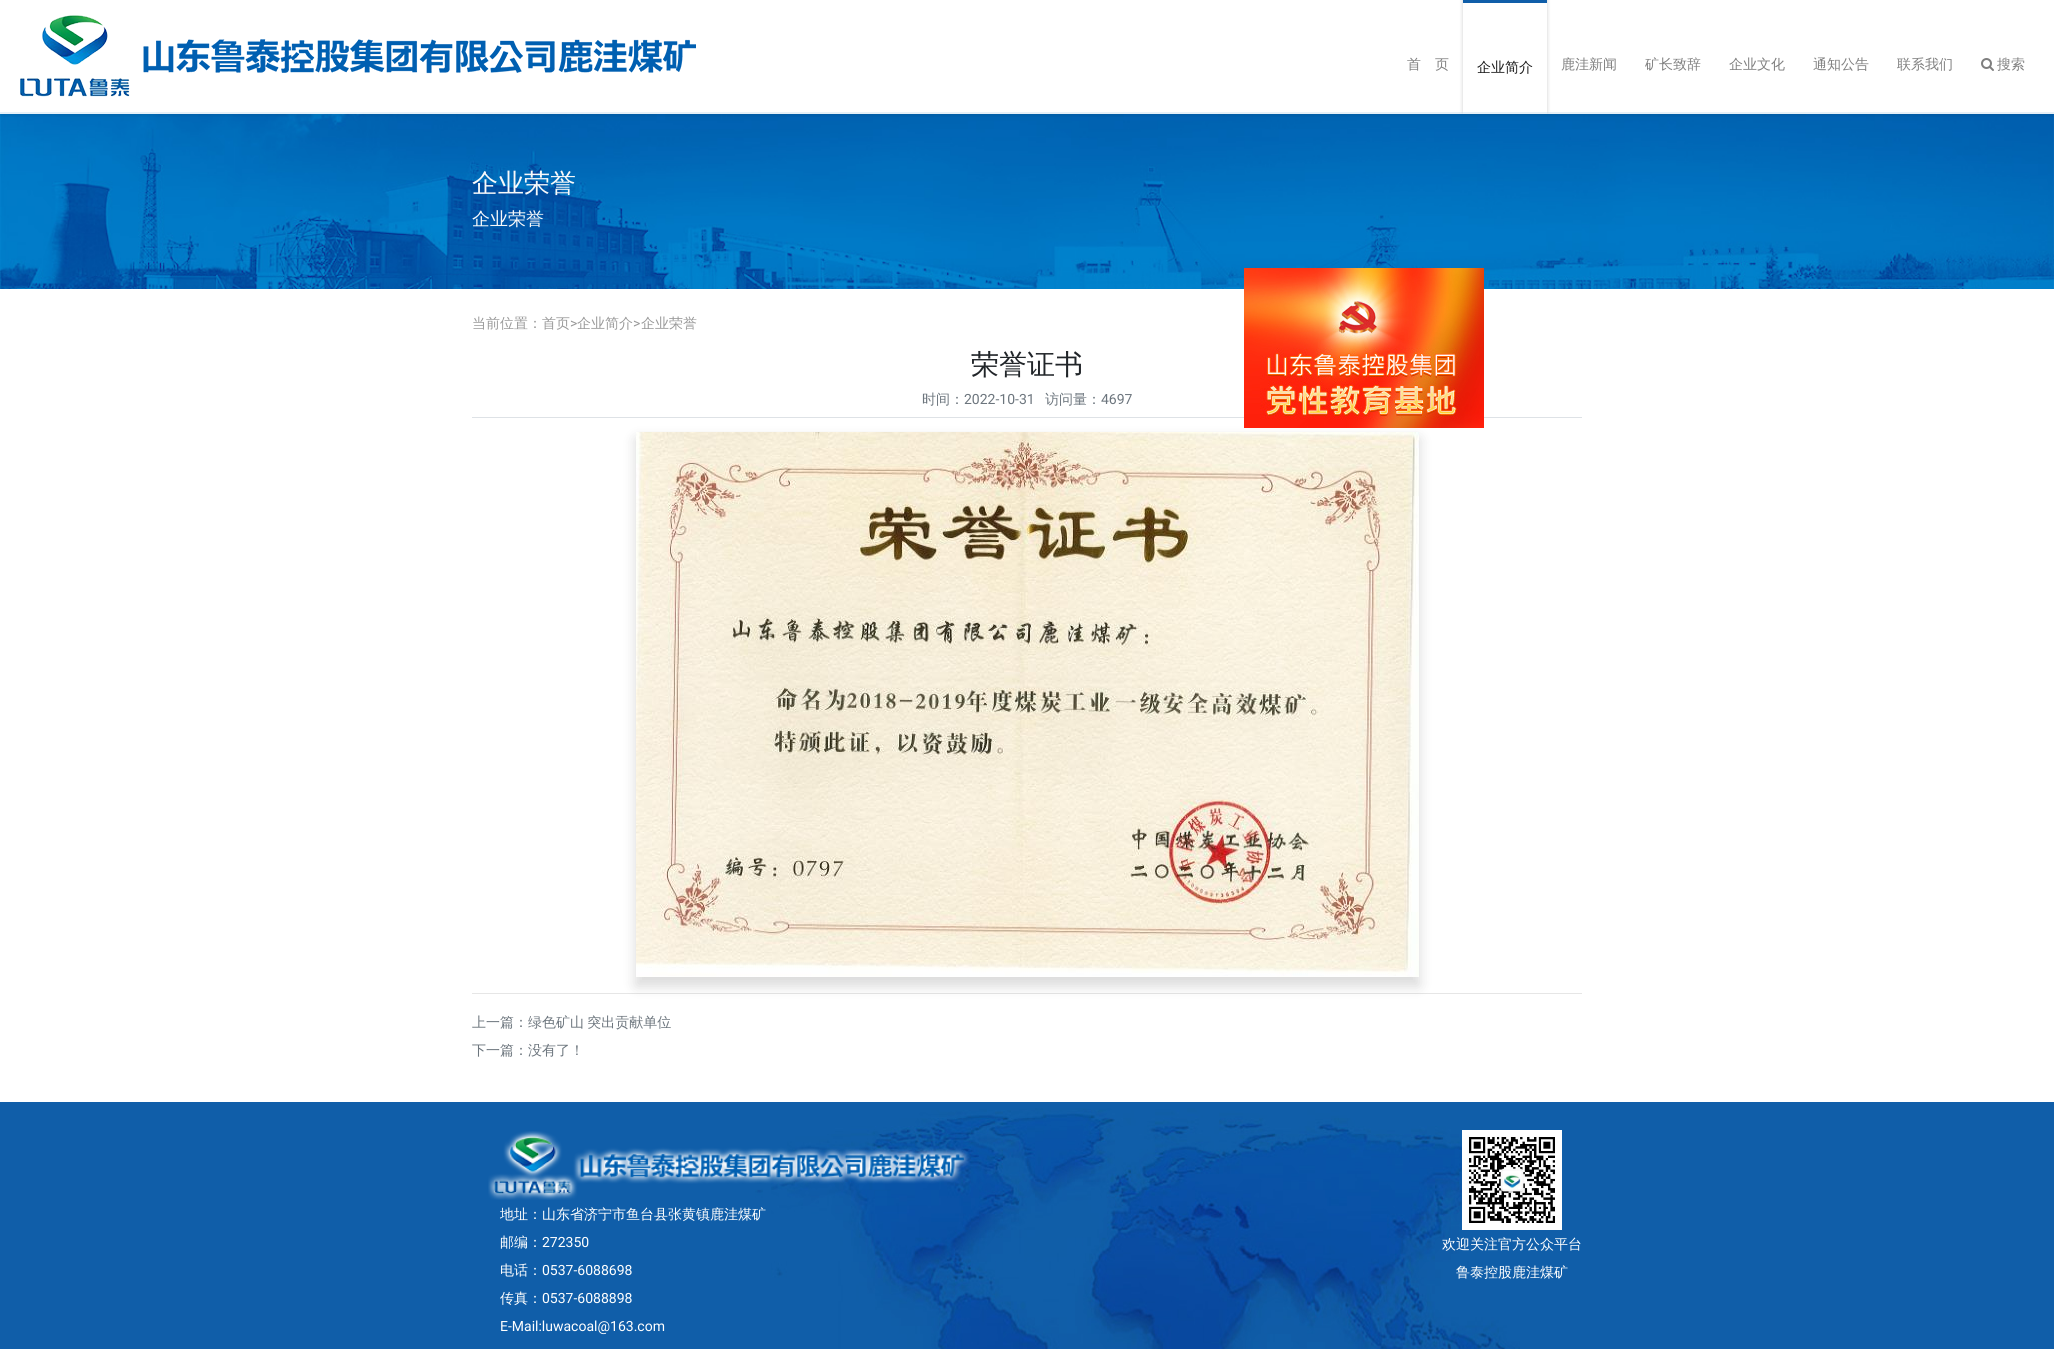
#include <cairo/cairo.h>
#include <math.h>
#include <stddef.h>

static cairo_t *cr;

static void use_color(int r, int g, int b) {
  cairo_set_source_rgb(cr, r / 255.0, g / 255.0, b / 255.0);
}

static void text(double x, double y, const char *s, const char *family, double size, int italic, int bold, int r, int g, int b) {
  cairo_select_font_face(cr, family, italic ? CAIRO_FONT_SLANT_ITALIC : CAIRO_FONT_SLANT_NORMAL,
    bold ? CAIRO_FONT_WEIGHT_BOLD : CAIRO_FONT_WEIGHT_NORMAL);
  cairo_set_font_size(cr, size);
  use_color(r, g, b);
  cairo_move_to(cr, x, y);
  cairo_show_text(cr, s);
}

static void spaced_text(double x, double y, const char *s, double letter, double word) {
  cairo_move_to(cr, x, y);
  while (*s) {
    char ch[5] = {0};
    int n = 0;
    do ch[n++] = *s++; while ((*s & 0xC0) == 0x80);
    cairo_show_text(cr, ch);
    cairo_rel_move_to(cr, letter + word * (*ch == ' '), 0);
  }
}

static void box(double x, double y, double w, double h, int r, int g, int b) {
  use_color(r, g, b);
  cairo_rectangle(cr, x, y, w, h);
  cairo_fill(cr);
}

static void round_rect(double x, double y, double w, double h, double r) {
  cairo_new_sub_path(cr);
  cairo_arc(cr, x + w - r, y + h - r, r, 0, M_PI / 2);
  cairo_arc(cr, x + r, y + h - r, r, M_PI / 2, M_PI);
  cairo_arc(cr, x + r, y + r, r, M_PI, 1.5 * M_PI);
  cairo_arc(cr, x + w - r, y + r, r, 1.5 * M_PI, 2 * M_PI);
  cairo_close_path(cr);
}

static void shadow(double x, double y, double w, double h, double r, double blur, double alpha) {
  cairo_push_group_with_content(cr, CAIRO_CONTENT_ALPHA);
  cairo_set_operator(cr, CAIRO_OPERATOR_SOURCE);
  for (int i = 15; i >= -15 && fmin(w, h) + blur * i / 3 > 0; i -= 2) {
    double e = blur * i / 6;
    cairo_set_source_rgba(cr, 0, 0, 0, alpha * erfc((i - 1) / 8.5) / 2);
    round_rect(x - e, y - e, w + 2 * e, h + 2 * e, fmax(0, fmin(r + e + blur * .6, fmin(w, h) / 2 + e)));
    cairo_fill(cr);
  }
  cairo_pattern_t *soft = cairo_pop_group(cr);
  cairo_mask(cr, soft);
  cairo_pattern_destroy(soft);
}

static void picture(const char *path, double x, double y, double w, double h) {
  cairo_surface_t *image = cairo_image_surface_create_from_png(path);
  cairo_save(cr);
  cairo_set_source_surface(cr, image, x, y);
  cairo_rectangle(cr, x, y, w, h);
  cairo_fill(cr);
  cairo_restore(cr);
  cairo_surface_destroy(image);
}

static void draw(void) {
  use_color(255, 255, 255);
  cairo_paint(cr);
  picture("img_03.png", 0, 112, 2054, 177);
  cairo_save(cr);
  cairo_rectangle(cr, 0, 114, 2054, 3);
  cairo_clip(cr);
  use_color(0, 0, 0);
  shadow(0, 2, 2054, 114, 0, 2, 0.07);
  cairo_restore(cr);
  cairo_set_source_rgba(cr, 1, 1, 1, 0.9);
  cairo_rectangle(cr, 0, 112, 2054, 2);
  cairo_fill(cr);
  picture("img_01.png", 20, 15, 676, 82);
  cairo_save(cr);
  cairo_set_fill_rule(cr, CAIRO_FILL_RULE_EVEN_ODD);
  cairo_new_path(cr);
  cairo_move_to(cr, 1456, 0);
  cairo_line_to(cr, 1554, 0);
  cairo_line_to(cr, 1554, 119);
  cairo_line_to(cr, 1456, 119);
  cairo_close_path(cr);
  cairo_move_to(cr, 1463, 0);
  cairo_line_to(cr, 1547, 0);
  cairo_line_to(cr, 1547, 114);
  cairo_line_to(cr, 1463, 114);
  cairo_close_path(cr);
  cairo_clip(cr);
  use_color(0, 0, 0);
  shadow(1463, -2, 84, 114, 0, 2, 0.2);
  cairo_restore(cr);
  box(1463, 0, 84, 3, 16, 94, 169);
  picture("img_02.png", 1981, 58, 13, 13);
  box(472, 417, 1110, 1, 222, 226, 230);
  use_color(0, 0, 0);
  shadow(636, 439, 783, 547, 0, 7, 0.15);
  picture("img_04.png", 636, 432, 783, 545);
  cairo_set_source_rgba(cr, 0, 0, 0, 0.1);
  cairo_rectangle(cr, 472, 993, 1110, 1);
  cairo_fill(cr);
  picture("img_05.png", 1244, 268, 240, 160);
  box(0, 1102, 2054, 247, 16, 94, 169);
  picture("img_06.png", 755, 1108, 765, 241);
  picture("img_07.png", 488, 1131, 482, 69);
  picture("img_08.png", 1462, 1130, 100, 100);
  text(1407, 69, "首　页", "WenQuanYi Zen Hei Medium", 14, 0, 0, 128, 128, 128);
  text(1477, 72, "企业简介", "WenQuanYi Zen Hei Medium", 14, 0, 0, 26, 26, 26);
  text(1561, 69, "鹿洼新闻", "WenQuanYi Zen Hei Medium", 14, 0, 0, 128, 128, 128);
  text(1645, 69, "矿长致辞", "WenQuanYi Zen Hei Medium", 14, 0, 0, 128, 128, 128);
  text(1729, 69, "企业文化", "WenQuanYi Zen Hei Medium", 14, 0, 0, 128, 128, 128);
  text(1813, 69, "通知公告", "WenQuanYi Zen Hei Medium", 14, 0, 0, 128, 128, 128);
  text(1897, 69, "联系我们", "WenQuanYi Zen Hei Medium", 14, 0, 0, 128, 128, 128);
  text(1997, 69, "搜索", "WenQuanYi Zen Hei Medium", 14, 0, 0, 128, 128, 128);
  text(472, 192, "企业荣誉", "WenQuanYi Zen Hei Medium", 26, 0, 0, 248, 249, 250);
  text(472, 225, "企业荣誉", "WenQuanYi Zen Hei Medium", 18, 0, 0, 248, 249, 250);
  text(472, 328, "当前位置：首页", "WenQuanYi Zen Hei Medium", 14, 0, 0, 153, 153, 153);
  text(570, 328, ">", "Roboto", 14, 0, 0, 153, 153, 153);
  text(577, 328, "企业简介", "WenQuanYi Zen Hei Medium", 14, 0, 0, 153, 153, 153);
  text(633, 328, ">", "Roboto", 14, 0, 0, 153, 153, 153);
  text(641, 328, "企业荣誉", "WenQuanYi Zen Hei Medium", 14, 0, 0, 153, 153, 153);
  text(971, 374, "荣誉证书", "WenQuanYi Zen Hei Medium", 28, 0, 0, 33, 37, 41);
  text(922, 404, "时间：", "WenQuanYi Zen Hei Medium", 14, 0, 0, 108, 117, 125);
  text(964, 404, "2022-10-31", "Roboto", 14, 0, 0, 108, 117, 125);
  text(1045, 404, "访问量：", "WenQuanYi Zen Hei Medium", 14, 0, 0, 108, 117, 125);
  text(1101, 404, "4697", "Roboto", 14, 0, 0, 108, 117, 125);
  text(472, 1027, "上一篇：", "WenQuanYi Zen Hei Medium", 14, 0, 0, 108, 117, 125);
  spaced_text(528, 1027, "绿色矿山 突出贡献单位", 0, -1);
  text(472, 1055, "下一篇：没有了！", "WenQuanYi Zen Hei Medium", 14, 0, 0, 108, 117, 125);
  text(500, 1219, "地址：山东省济宁市鱼台县张黄镇鹿洼煤矿", "WenQuanYi Zen Hei Medium", 14, 0, 0, 255, 255, 255);
  text(500, 1247, "邮编：", "WenQuanYi Zen Hei Medium", 14, 0, 0, 255, 255, 255);
  text(542, 1247, "272350", "Roboto", 14, 0, 0, 255, 255, 255);
  text(500, 1275, "电话：", "WenQuanYi Zen Hei Medium", 14, 0, 0, 255, 255, 255);
  text(542, 1275, "0537-6088698", "Roboto", 14, 0, 0, 255, 255, 255);
  text(500, 1303, "传真：", "WenQuanYi Zen Hei Medium", 14, 0, 0, 255, 255, 255);
  text(542, 1303, "0537-6088898", "Roboto", 14, 0, 0, 255, 255, 255);
  text(500, 1331, "E-Mail:luwacoal@163.com", "Roboto", 14, 0, 0, 255, 255, 255);
  text(1442, 1249, "欢迎关注官方公众平台", "WenQuanYi Zen Hei Medium", 14, 0, 0, 255, 255, 255);
  text(1456, 1277, "鲁泰控股鹿洼煤矿", "WenQuanYi Zen Hei Medium", 14, 0, 0, 255, 255, 255);
}

int main(void) {
  cairo_surface_t *surface = cairo_image_surface_create(CAIRO_FORMAT_RGB24, 2054, 1349);
  cr = cairo_create(surface);
  cairo_font_options_t *options = cairo_font_options_create();
  cairo_font_options_set_hint_metrics(options, CAIRO_HINT_METRICS_OFF);
  cairo_font_options_set_hint_style(options, CAIRO_HINT_STYLE_NONE);
  cairo_set_font_options(cr, options);
  cairo_set_miter_limit(cr, 4);
  draw();
  cairo_surface_write_to_png(surface, "out.png");
  cairo_font_options_destroy(options);
  cairo_destroy(cr);
  cairo_surface_destroy(surface);
  return 0;
}
